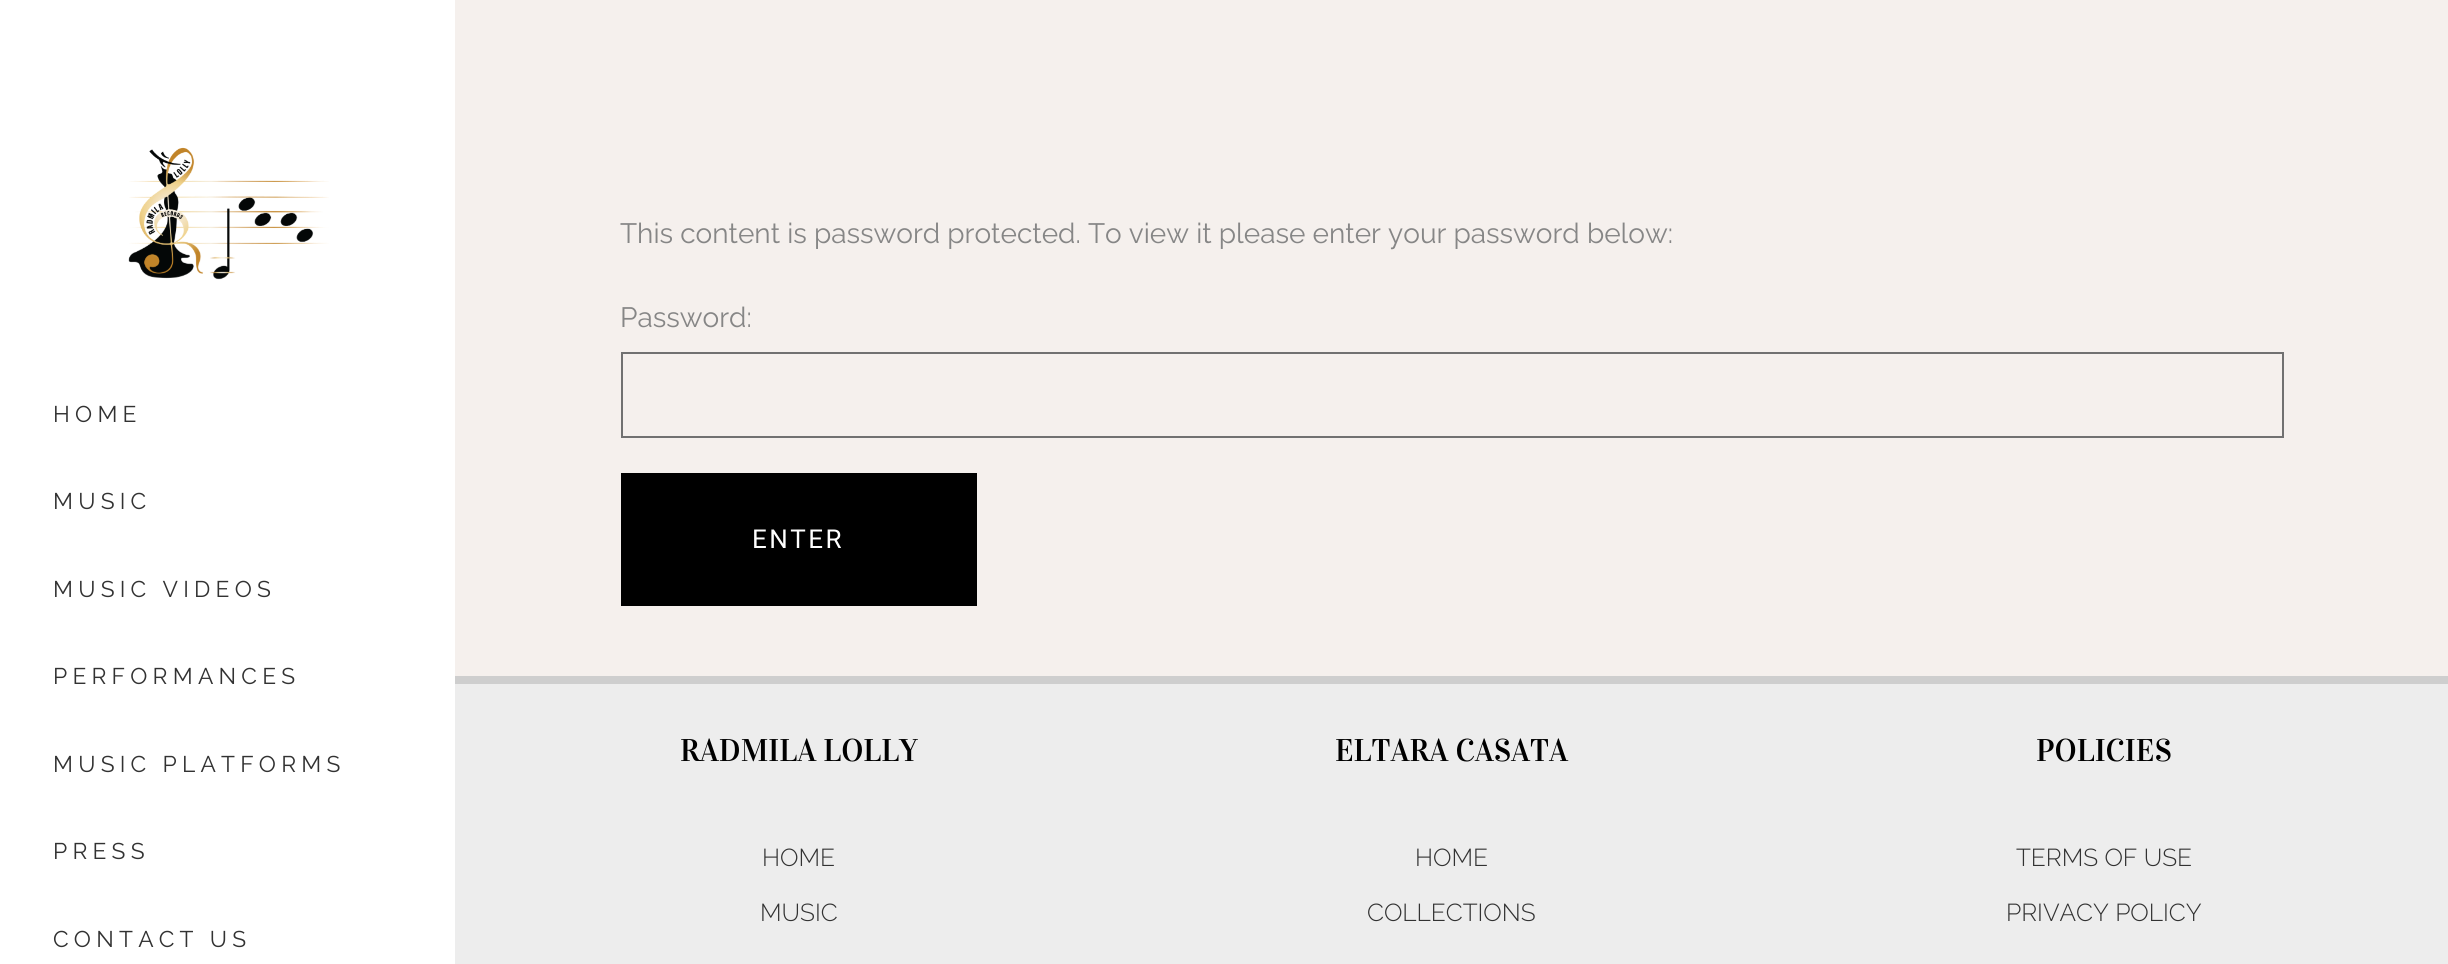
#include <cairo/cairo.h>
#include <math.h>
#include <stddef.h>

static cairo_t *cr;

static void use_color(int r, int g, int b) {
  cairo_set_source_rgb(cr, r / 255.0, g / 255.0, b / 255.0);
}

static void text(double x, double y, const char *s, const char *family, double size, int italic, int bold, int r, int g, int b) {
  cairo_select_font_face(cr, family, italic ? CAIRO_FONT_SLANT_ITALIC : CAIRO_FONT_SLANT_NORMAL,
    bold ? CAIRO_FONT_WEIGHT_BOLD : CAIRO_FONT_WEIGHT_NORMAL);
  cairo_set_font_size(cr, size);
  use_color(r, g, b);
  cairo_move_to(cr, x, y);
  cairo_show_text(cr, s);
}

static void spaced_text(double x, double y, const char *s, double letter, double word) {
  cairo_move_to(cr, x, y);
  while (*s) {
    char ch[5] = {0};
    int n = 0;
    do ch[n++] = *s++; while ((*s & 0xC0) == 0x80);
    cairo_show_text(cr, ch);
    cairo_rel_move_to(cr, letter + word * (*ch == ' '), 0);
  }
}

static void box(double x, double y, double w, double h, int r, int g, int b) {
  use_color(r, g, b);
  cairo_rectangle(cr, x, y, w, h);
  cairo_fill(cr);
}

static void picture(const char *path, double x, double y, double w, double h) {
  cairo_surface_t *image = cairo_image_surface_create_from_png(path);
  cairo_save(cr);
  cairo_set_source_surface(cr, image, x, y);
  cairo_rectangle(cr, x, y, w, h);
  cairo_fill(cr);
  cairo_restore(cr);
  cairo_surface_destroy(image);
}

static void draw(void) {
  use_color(245, 240, 237);
  cairo_paint(cr);
  box(0, 0, 455, 964, 255, 255, 255);
  picture("img_01.png", 128, 147, 201, 133);
  cairo_rectangle(cr, 622, 353, 1661, 84);
  use_color(113, 113, 113);
  cairo_stroke(cr);
  box(621, 473, 356, 133, 0, 0, 0);
  box(455, 684, 1993, 280, 237, 237, 237);
  box(455, 676, 1993, 8, 206, 206, 206);
  cairo_select_font_face(cr, "Raleway", CAIRO_FONT_SLANT_NORMAL, CAIRO_FONT_WEIGHT_NORMAL);
  cairo_set_font_size(cr, 22.75);
  use_color(50, 50, 50);
  spaced_text(53, 422, "HOME", 5.25, 0);
  spaced_text(53, 509, "MUSIC", 5.25, 0);
  spaced_text(53, 597, "MUSIC VIDEOS", 5.25, 0);
  spaced_text(53, 684, "PERFORMANCES", 5.25, 0);
  spaced_text(53, 772, "MUSIC PLATFORMS", 5.25, 0);
  spaced_text(53, 859, "PRESS", 5.25, 0);
  spaced_text(53, 947, "CONTACT US", 5.25, 0);
  text(620, 243, "This content is password protected. To view it please enter your password below:", "Raleway", 28, 0, 0, 134, 134, 134);
  text(620, 327, "Password:", "Raleway", 28, 0, 0, 134, 134, 134);
  cairo_select_font_face(cr, "Roboto", CAIRO_FONT_SLANT_NORMAL, CAIRO_FONT_WEIGHT_NORMAL);
  cairo_set_font_size(cr, 26);
  use_color(255, 255, 255);
  spaced_text(752, 548, "ENTER", 2.5, 0);
  text(680, 761, "RADMILA LOLLY", "Vidaloka", 31.5, 0, 0, 0, 0, 0);
  text(762, 866, "HOME", "Raleway Light", 24.5, 0, 0, 50, 50, 50);
  text(760, 921, "MUSIC", "Raleway Light", 24.5, 0, 0, 50, 50, 50);
  text(1335, 761, "ELTARA CASATA", "Vidaloka", 31.5, 0, 0, 0, 0, 0);
  text(1415, 866, "HOME", "Raleway Light", 24.5, 0, 0, 50, 50, 50);
  text(1367, 921, "COLLECTIONS", "Raleway Light", 24.5, 0, 0, 50, 50, 50);
  text(2036, 761, "POLICIES", "Vidaloka", 31.5, 0, 0, 0, 0, 0);
  text(2016, 866, "TERMS OF USE", "Raleway Light", 24.5, 0, 0, 50, 50, 50);
  text(2006, 921, "PRIVACY POLICY", "Raleway Light", 24.5, 0, 0, 50, 50, 50);
}

int main(void) {
  cairo_surface_t *surface = cairo_image_surface_create(CAIRO_FORMAT_RGB24, 2448, 964);
  cr = cairo_create(surface);
  cairo_font_options_t *options = cairo_font_options_create();
  cairo_font_options_set_hint_metrics(options, CAIRO_HINT_METRICS_OFF);
  cairo_font_options_set_hint_style(options, CAIRO_HINT_STYLE_NONE);
  cairo_set_font_options(cr, options);
  cairo_set_miter_limit(cr, 4);
  draw();
  cairo_surface_write_to_png(surface, "out.png");
  cairo_font_options_destroy(options);
  cairo_destroy(cr);
  cairo_surface_destroy(surface);
  return 0;
}
